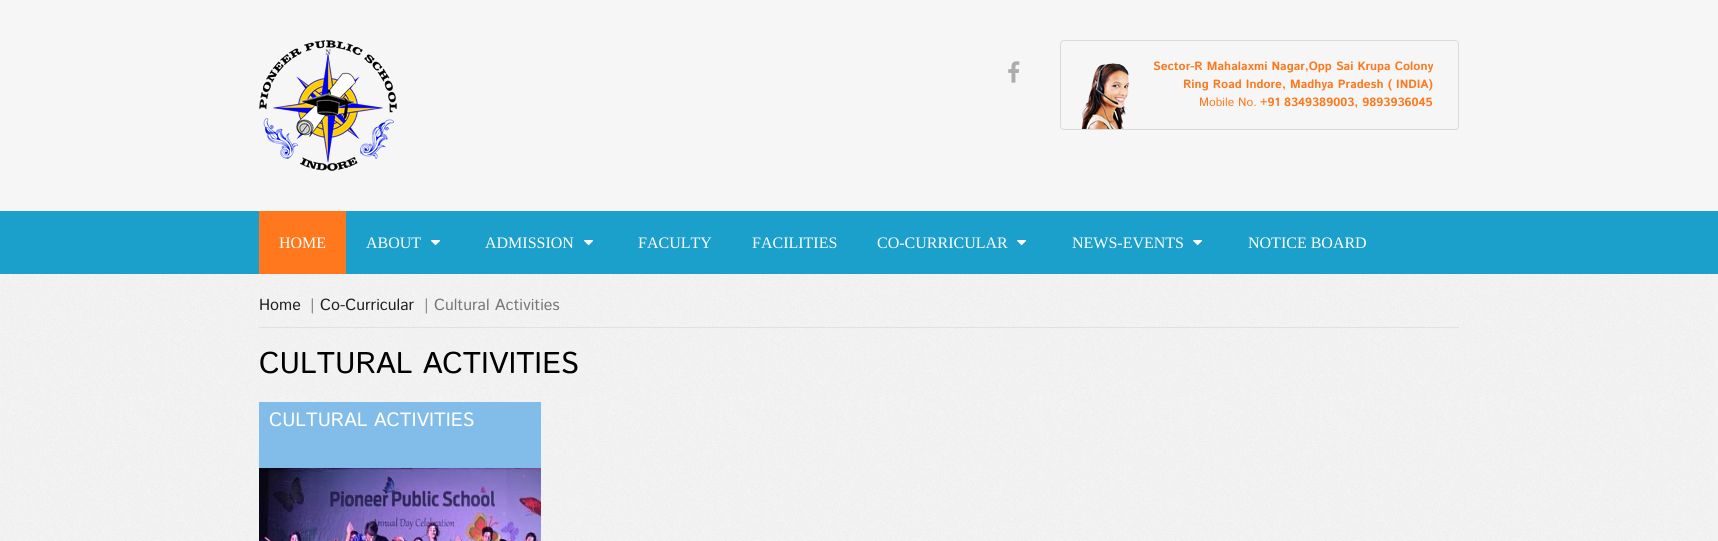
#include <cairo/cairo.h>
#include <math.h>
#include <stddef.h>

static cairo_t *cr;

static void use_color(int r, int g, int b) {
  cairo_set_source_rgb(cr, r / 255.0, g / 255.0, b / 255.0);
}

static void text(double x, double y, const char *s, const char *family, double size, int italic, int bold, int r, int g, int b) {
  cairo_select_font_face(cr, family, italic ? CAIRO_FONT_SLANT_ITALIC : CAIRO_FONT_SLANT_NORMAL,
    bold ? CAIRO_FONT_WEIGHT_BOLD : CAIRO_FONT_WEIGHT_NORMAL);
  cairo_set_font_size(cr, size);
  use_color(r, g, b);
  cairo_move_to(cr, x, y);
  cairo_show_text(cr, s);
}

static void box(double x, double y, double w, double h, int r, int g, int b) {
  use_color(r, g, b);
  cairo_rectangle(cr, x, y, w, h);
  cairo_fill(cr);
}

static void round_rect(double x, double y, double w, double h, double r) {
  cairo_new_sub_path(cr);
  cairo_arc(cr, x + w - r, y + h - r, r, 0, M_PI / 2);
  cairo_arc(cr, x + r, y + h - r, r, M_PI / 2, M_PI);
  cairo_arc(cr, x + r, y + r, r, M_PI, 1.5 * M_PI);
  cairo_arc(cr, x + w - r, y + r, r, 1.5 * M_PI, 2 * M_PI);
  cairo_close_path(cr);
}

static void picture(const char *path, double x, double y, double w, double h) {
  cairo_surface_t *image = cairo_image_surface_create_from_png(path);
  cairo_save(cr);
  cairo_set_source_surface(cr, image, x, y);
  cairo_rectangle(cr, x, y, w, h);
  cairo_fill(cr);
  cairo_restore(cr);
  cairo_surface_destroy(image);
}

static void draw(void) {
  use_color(242, 242, 242);
  cairo_paint(cr);
  picture("img_01.png", 1, 274, 1713, 267);
  box(0, 0, 1718, 211, 246, 246, 246);
  picture("img_02.png", 259, 40, 138, 131);
  picture("img_03.png", 1008, 61, 12, 22);
  round_rect(1060.5, 40.5, 398, 89, 3.5);
  use_color(218, 218, 218);
  cairo_set_line_width(cr, 1);
  cairo_stroke(cr);
  picture("img_04.png", 1081, 63, 49, 66);
  box(0, 211, 1718, 63, 27, 160, 204);
  box(259, 211, 87, 63, 255, 120, 29);
  picture("img_05.png", 431, 240, 10, 6);
  picture("img_05.png", 584, 240, 10, 6);
  picture("img_05.png", 1017, 240, 10, 6);
  picture("img_05.png", 1193, 240, 10, 6);
  box(259, 327, 1200, 1, 225, 225, 225);
  box(259, 402, 282, 66, 130, 189, 233);
  picture("img_06.png", 259, 468, 282, 73);
  text(1153, 70, "Sector-R Mahalaxmi Nagar,Opp Sai Krupa Colony", "Istok Web", 12, 0, 1, 255, 120, 29);
  text(1183, 88, "Ring Road Indore, Madhya Pradesh ( INDIA)", "Istok Web", 12, 0, 1, 255, 120, 29);
  text(1199, 106, "Mobile No.", "Istok Web", 12, 0, 0, 255, 120, 29);
  text(1260, 106, "+91 8349389003, 9893936045", "Istok Web", 12, 0, 1, 255, 120, 29);
  text(279, 248, "HOME", "Liberation Serif", 16, 0, 0, 255, 255, 255);
  text(366, 248, "ABOUT", "Liberation Serif", 16, 0, 0, 255, 255, 255);
  text(485, 248, "ADMISSION", "Liberation Serif", 16, 0, 0, 255, 255, 255);
  text(638, 248, "FACULTY", "Liberation Serif", 16, 0, 0, 255, 255, 255);
  text(752, 248, "FACILITIES", "Liberation Serif", 16, 0, 0, 255, 255, 255);
  text(877, 248, "CO-CURRICULAR", "Liberation Serif", 16, 0, 0, 255, 255, 255);
  text(1072, 248, "NEWS-EVENTS", "Liberation Serif", 16, 0, 0, 255, 255, 255);
  text(1248, 248, "NOTICE BOARD", "Liberation Serif", 16, 0, 0, 255, 255, 255);
  text(259, 310, "Home", "Istok Web", 16, 0, 0, 35, 31, 32);
  text(310, 310, "|", "Istok Web", 16, 0, 0, 119, 119, 119);
  text(320, 310, "Co-Curricular", "Istok Web", 16, 0, 0, 35, 31, 32);
  text(424, 310, "| Cultural Activities", "Istok Web", 16, 0, 0, 119, 119, 119);
  text(259, 373, "CULTURAL ACTIVITIES", "Istok Web", 30, 0, 0, 0, 0, 0);
  text(269, 426, "CULTURAL ACTIVITIES", "Istok Web", 19.25, 0, 0, 255, 255, 255);
}

int main(void) {
  cairo_surface_t *surface = cairo_image_surface_create(CAIRO_FORMAT_RGB24, 1718, 541);
  cr = cairo_create(surface);
  cairo_font_options_t *options = cairo_font_options_create();
  cairo_font_options_set_hint_metrics(options, CAIRO_HINT_METRICS_OFF);
  cairo_font_options_set_hint_style(options, CAIRO_HINT_STYLE_NONE);
  cairo_set_font_options(cr, options);
  cairo_set_miter_limit(cr, 4);
  draw();
  cairo_surface_write_to_png(surface, "out.png");
  cairo_font_options_destroy(options);
  cairo_destroy(cr);
  cairo_surface_destroy(surface);
  return 0;
}
